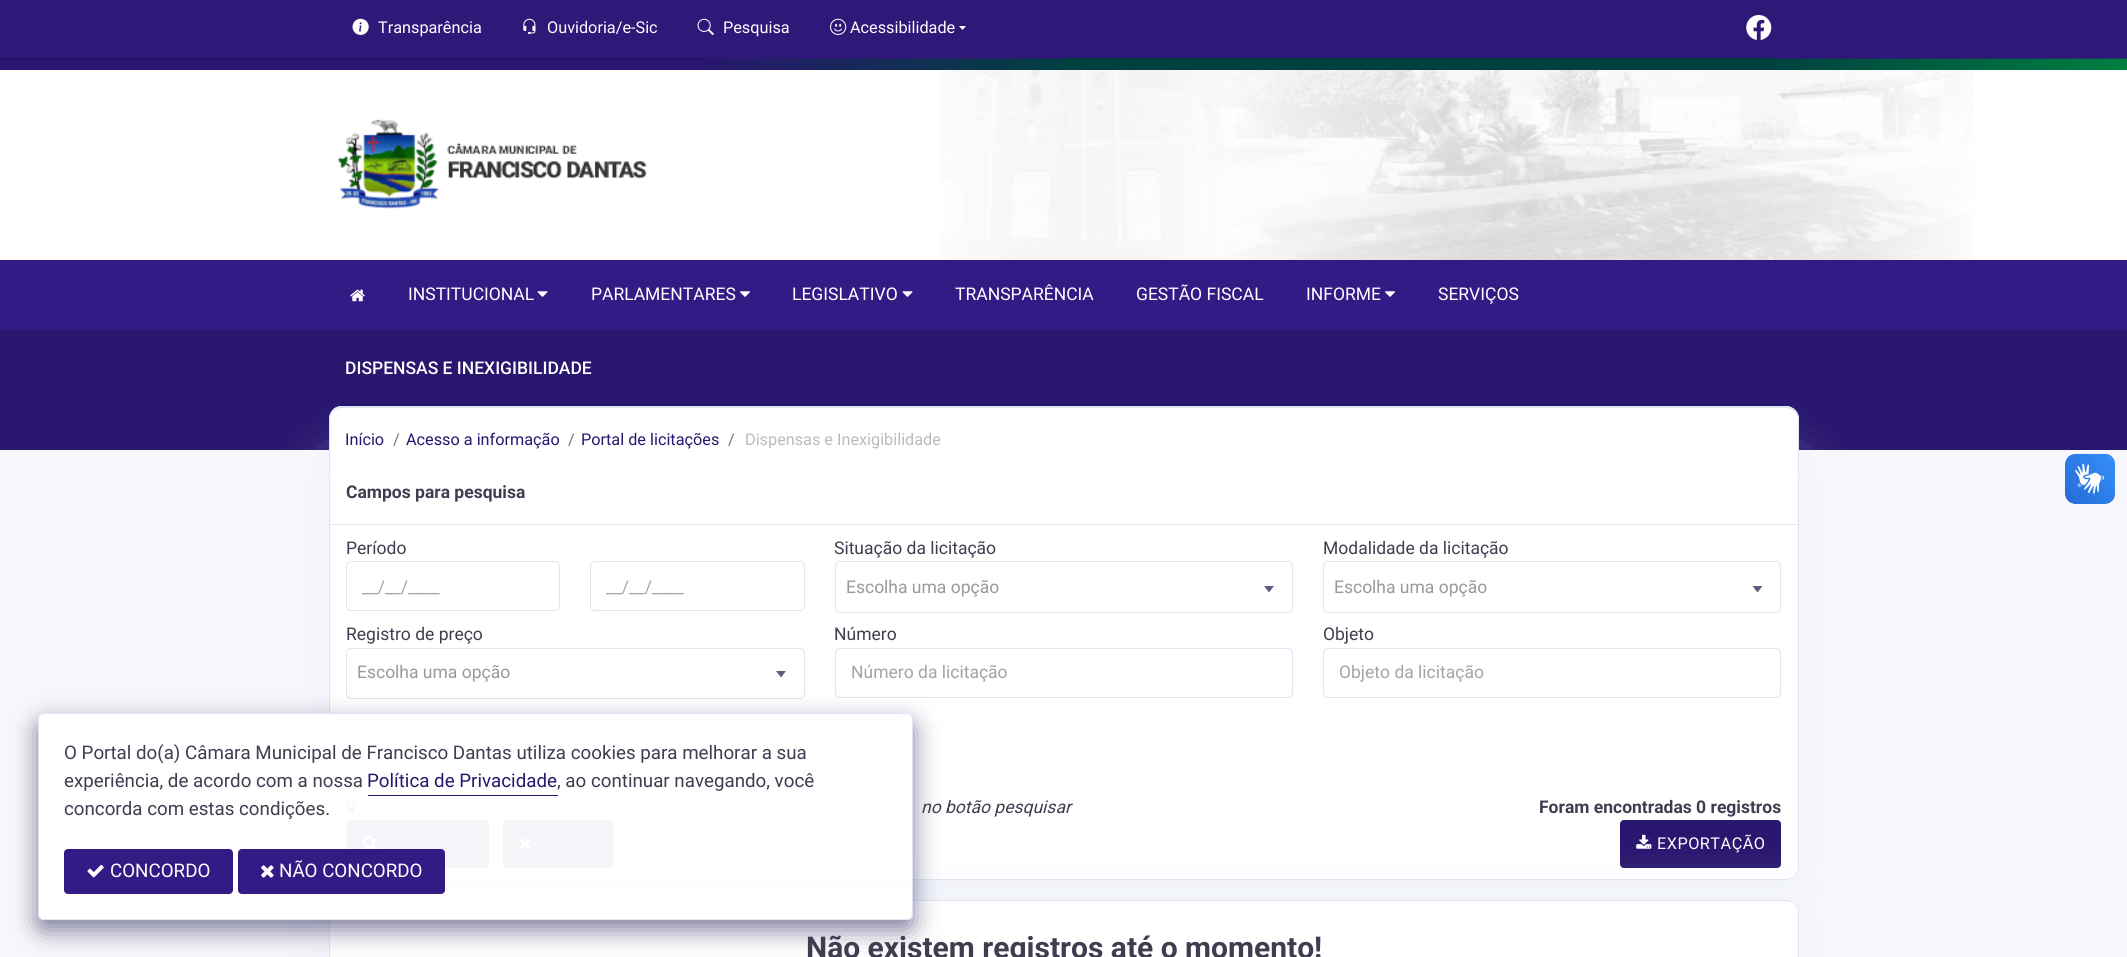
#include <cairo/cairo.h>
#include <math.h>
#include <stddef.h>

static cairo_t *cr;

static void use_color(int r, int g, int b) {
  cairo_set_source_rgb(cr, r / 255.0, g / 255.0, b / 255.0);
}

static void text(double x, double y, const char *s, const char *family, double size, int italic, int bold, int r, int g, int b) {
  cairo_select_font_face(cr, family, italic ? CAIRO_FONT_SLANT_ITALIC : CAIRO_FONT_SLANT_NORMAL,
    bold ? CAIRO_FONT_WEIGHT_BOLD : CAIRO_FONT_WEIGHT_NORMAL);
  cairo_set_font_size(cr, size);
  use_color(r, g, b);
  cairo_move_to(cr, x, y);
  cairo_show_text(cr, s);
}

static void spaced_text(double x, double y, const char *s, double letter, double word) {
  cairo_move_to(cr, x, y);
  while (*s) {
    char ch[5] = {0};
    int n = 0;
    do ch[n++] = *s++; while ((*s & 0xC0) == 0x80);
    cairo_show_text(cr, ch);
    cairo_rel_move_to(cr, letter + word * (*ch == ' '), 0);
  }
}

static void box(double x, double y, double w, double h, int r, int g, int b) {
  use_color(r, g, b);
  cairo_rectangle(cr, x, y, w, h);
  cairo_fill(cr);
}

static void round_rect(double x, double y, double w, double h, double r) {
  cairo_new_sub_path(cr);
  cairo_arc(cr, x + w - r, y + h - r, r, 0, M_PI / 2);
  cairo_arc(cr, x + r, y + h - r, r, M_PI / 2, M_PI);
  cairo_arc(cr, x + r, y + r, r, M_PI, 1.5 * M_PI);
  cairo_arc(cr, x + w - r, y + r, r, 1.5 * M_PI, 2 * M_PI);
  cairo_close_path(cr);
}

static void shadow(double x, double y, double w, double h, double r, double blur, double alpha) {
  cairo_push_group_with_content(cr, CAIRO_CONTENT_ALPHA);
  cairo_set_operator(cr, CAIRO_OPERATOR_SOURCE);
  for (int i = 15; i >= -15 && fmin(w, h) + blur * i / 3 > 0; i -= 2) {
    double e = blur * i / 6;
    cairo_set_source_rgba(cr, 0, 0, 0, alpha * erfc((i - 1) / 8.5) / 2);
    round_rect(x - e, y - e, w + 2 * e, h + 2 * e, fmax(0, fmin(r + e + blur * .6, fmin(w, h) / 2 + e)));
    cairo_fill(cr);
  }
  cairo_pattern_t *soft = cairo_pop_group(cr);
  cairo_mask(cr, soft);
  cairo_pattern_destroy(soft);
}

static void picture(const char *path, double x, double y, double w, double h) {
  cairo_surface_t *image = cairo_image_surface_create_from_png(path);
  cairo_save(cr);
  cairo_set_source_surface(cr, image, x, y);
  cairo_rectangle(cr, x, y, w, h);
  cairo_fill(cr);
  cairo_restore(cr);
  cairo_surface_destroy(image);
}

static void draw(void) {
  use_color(247, 247, 251);
  cairo_paint(cr);
  box(0, 70, 2127, 190, 255, 255, 255);
  picture("img_01.png", 939, 70, 1035, 190);
  box(0, 0, 2127, 59, 51, 27, 133);
  box(0, 58, 709, 12, 41, 22, 111);
  picture("img_07.png", 709, 58, 354, 12);
  box(1063, 58, 710, 12, 0, 64, 64);
  picture("img_08.png", 1773, 58, 354, 12);
  cairo_set_source_rgba(cr, 0, 0, 0, 0.1);
  cairo_rectangle(cr, 0, 0, 2127, 59);
  cairo_fill(cr);
  picture("img_02.png", 352, 18, 17, 17);
  picture("img_03.png", 523, 18, 13, 16);
  picture("img_04.png", 697, 18, 17, 17);
  picture("img_05.png", 830, 18, 17, 17);
  use_color(255, 255, 255);
  cairo_new_path(cr);
  cairo_move_to(cr, 959, 26);
  cairo_line_to(cr, 966, 26);
  cairo_line_to(cr, 962.5, 30);
  cairo_close_path(cr);
  cairo_fill(cr);
  picture("img_06.png", 1746, 15, 26, 25);
  picture("img_09.png", 337, 119, 310, 90);
  box(0, 260, 2127, 70, 51, 27, 133);
  picture("img_10.png", 350, 289, 15, 13);
  picture("img_11.png", 537, 291, 11, 6);
  picture("img_12.png", 740, 291, 10, 6);
  picture("img_11.png", 902, 291, 11, 6);
  picture("img_12.png", 1385, 291, 10, 6);
  box(0, 330, 2127, 120, 41, 22, 111);
  use_color(234, 238, 249);
  shadow(329, 460, 1470, 420, 13, 25, 0.5);
  use_color(255, 255, 255);
  round_rect(329.5, 460.5, 1469, 419, 12.5);
  cairo_fill_preserve(cr);
  use_color(224, 229, 243);
  cairo_set_line_width(cr, 1);
  cairo_stroke(cr);
  use_color(255, 255, 255);
  cairo_new_path(cr);
  cairo_move_to(cr, 342, 406);
  cairo_line_to(cr, 1786, 406);
  cairo_curve_to(cr, 1793, 406, 1799, 412, 1799, 419);
  cairo_line_to(cr, 1799, 473);
  cairo_line_to(cr, 329, 473);
  cairo_line_to(cr, 329, 419);
  cairo_curve_to(cr, 329, 412, 335, 406, 342, 406);
  cairo_close_path(cr);
  cairo_fill(cr);
  use_color(224, 229, 243);
  cairo_set_fill_rule(cr, CAIRO_FILL_RULE_EVEN_ODD);
  cairo_new_path(cr);
  cairo_move_to(cr, 341, 406);
  cairo_line_to(cr, 1786, 406);
  cairo_curve_to(cr, 1793, 406, 1799, 412, 1799, 419);
  cairo_line_to(cr, 1799, 472);
  cairo_line_to(cr, 329, 472);
  cairo_line_to(cr, 329, 419);
  cairo_curve_to(cr, 329, 412, 334, 406, 341, 406);
  cairo_close_path(cr);
  cairo_move_to(cr, 341, 408);
  cairo_line_to(cr, 1786, 408);
  cairo_curve_to(cr, 1792, 408, 1798, 413, 1798, 419);
  cairo_line_to(cr, 1798, 472);
  cairo_line_to(cr, 330, 472);
  cairo_line_to(cr, 330, 419);
  cairo_curve_to(cr, 330, 413, 335, 408, 341, 408);
  cairo_close_path(cr);
  cairo_fill(cr);
  picture("img_13.png", 2065, 453, 50, 51);
  picture("img_14.png", 2065, 454, 50, 50);
  box(330, 524, 1468, 1, 224, 229, 243);
  round_rect(346.5, 561.5, 213, 49, 4.5);
  cairo_stroke(cr);
  round_rect(590.5, 561.5, 214, 49, 4.5);
  cairo_stroke(cr);
  round_rect(835.5, 561.5, 457, 51, 4.5);
  cairo_stroke(cr);
  use_color(96, 94, 126);
  cairo_set_fill_rule(cr, CAIRO_FILL_RULE_WINDING);
  cairo_new_path(cr);
  cairo_move_to(cr, 1264, 586);
  cairo_line_to(cr, 1274, 586);
  cairo_line_to(cr, 1269, 592.5);
  cairo_close_path(cr);
  cairo_fill(cr);
  round_rect(1323.5, 561.5, 457, 51, 4.5);
  use_color(224, 229, 243);
  cairo_stroke(cr);
  use_color(96, 94, 126);
  cairo_new_path(cr);
  cairo_move_to(cr, 1752.5, 586);
  cairo_line_to(cr, 1762.5, 586);
  cairo_line_to(cr, 1757.5, 592.5);
  cairo_close_path(cr);
  cairo_fill(cr);
  round_rect(346.5, 648.5, 458, 50, 4.5);
  use_color(224, 229, 243);
  cairo_stroke(cr);
  use_color(96, 94, 126);
  cairo_new_path(cr);
  cairo_move_to(cr, 776, 671);
  cairo_line_to(cr, 786, 671);
  cairo_line_to(cr, 781, 677.5);
  cairo_close_path(cr);
  cairo_fill(cr);
  round_rect(835.5, 648.5, 457, 49, 4.5);
  use_color(224, 229, 243);
  cairo_stroke(cr);
  round_rect(1323.5, 648.5, 457, 49, 4.5);
  cairo_stroke(cr);
  round_rect(346.5, 730.5, 458, 49, 4.5);
  cairo_stroke(cr);
  picture("img_15.png", 346, 798, 11, 16);
  use_color(41, 22, 111);
  round_rect(346.5, 820.5, 142, 47, 3.5);
  cairo_fill_preserve(cr);
  cairo_stroke(cr);
  picture("img_16.png", 362, 836, 15, 13);
  round_rect(503.5, 820.5, 110, 47, 3.5);
  cairo_fill_preserve(cr);
  cairo_stroke(cr);
  picture("img_17.png", 519, 838, 12, 11);
  round_rect(1620.5, 820.5, 160, 47, 3.5);
  cairo_fill_preserve(cr);
  cairo_stroke(cr);
  picture("img_18.png", 1636, 834, 16, 15);
  use_color(234, 238, 249);
  shadow(329, 900, 1470, 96, 13, 25, 0.5);
  use_color(255, 255, 255);
  round_rect(329.5, 900.5, 1469, 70, 12.5);
  cairo_fill_preserve(cr);
  use_color(224, 229, 243);
  cairo_stroke(cr);
  cairo_save(cr);
  cairo_set_fill_rule(cr, CAIRO_FILL_RULE_EVEN_ODD);
  cairo_new_path(cr);
  cairo_move_to(cr, 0, 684);
  cairo_line_to(cr, 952, 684);
  cairo_line_to(cr, 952, 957);
  cairo_line_to(cr, 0, 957);
  cairo_close_path(cr);
  cairo_move_to(cr, 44, 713);
  cairo_line_to(cr, 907, 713);
  cairo_curve_to(cr, 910.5, 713, 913, 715.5, 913, 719);
  cairo_line_to(cr, 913, 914);
  cairo_curve_to(cr, 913, 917.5, 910.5, 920, 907, 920);
  cairo_line_to(cr, 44, 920);
  cairo_curve_to(cr, 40.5, 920, 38, 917.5, 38, 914);
  cairo_line_to(cr, 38, 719);
  cairo_curve_to(cr, 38, 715.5, 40.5, 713, 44, 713);
  cairo_close_path(cr);
  cairo_clip(cr);
  use_color(40, 37, 89);
  shadow(38, 723, 875, 207, 6, 12.5, 0.6);
  cairo_restore(cr);
  cairo_set_source_rgba(cr, 1, 1, 1, 0.95);
  round_rect(38.5, 713.5, 874, 206, 5.5);
  cairo_fill_preserve(cr);
  use_color(224, 229, 243);
  cairo_stroke(cr);
  box(368, 795, 190, 1, 41, 22, 111);
  use_color(51, 27, 133);
  round_rect(64, 849, 169, 45, 4);
  cairo_fill(cr);
  picture("img_19.png", 87, 864, 17, 14);
  round_rect(238, 849, 207, 45, 4);
  cairo_fill(cr);
  picture("img_20.png", 261, 865, 13, 13);
  text(378, 33, "Transparência", "Roboto", 16.25, 0, 0, 255, 255, 255);
  text(547, 33, "Ouvidoria/e-Sic", "Roboto", 16.25, 0, 0, 255, 255, 255);
  text(723, 33, "Pesquisa", "Roboto", 16.25, 0, 0, 255, 255, 255);
  text(850, 33, "Acessibilidade", "Roboto", 16.25, 0, 0, 255, 255, 255);
  text(408, 300, "INSTITUCIONAL", "Roboto", 17.5, 0, 0, 255, 255, 255);
  text(591, 300, "PARLAMENTARES", "Roboto", 17.5, 0, 0, 255, 255, 255);
  text(792, 300, "LEGISLATIVO", "Roboto", 17.5, 0, 0, 255, 255, 255);
  text(955, 300, "TRANSPARÊNCIA", "Roboto", 17.5, 0, 0, 255, 255, 255);
  text(1136, 300, "GESTÃO FISCAL", "Roboto", 17.5, 0, 0, 255, 255, 255);
  text(1306, 300, "INFORME", "Roboto", 17.5, 0, 0, 255, 255, 255);
  text(1438, 300, "SERVIÇOS", "Roboto", 17.5, 0, 0, 255, 255, 255);
  text(345, 374, "DISPENSAS E INEXIGIBILIDADE", "Roboto Medium", 17.5, 0, 0, 255, 255, 255);
  text(345, 445, "Início", "Roboto", 16.25, 0, 0, 41, 22, 111);
  text(393, 445, "/", "Roboto", 16.25, 0, 0, 108, 117, 125);
  text(406, 445, "Acesso a informação", "Roboto", 16.25, 0, 0, 41, 22, 111);
  text(568, 445, "/", "Roboto", 16.25, 0, 0, 108, 117, 125);
  text(581, 445, "Portal de licitações", "Roboto", 16.25, 0, 0, 41, 22, 111);
  text(728, 445, "/", "Roboto", 16.25, 0, 0, 108, 117, 125);
  text(745, 445, "Dispensas e Inexigibilidade", "Roboto", 16.25, 0, 0, 187, 187, 187);
  text(346, 498, "Campos para pesquisa", "Roboto", 17.5, 0, 1, 63, 62, 80);
  text(346, 554, "Período", "Roboto", 17.5, 0, 0, 63, 62, 80);
  text(362, 593, "__/__/____", "Roboto", 17.5, 0, 0, 163, 163, 163);
  text(606, 593, "__/__/____", "Roboto", 17.5, 0, 0, 163, 163, 163);
  text(834, 554, "Situação da licitação", "Roboto", 17.5, 0, 0, 63, 62, 80);
  text(846, 593, "Escolha uma opção", "Roboto", 17.5, 0, 0, 153, 153, 153);
  text(1323, 554, "Modalidade da licitação", "Roboto", 17.5, 0, 0, 63, 62, 80);
  text(1334, 593, "Escolha uma opção", "Roboto", 17.5, 0, 0, 153, 153, 153);
  text(346, 640, "Registro de preço", "Roboto", 17.5, 0, 0, 63, 62, 80);
  text(357, 678, "Escolha uma opção", "Roboto", 17.5, 0, 0, 153, 153, 153);
  text(834, 640, "Número", "Roboto", 17.5, 0, 0, 63, 62, 80);
  text(851, 678, "Número da licitação", "Roboto", 17.5, 0, 0, 163, 163, 163);
  text(1323, 640, "Objeto", "Roboto", 17.5, 0, 0, 63, 62, 80);
  text(1339, 678, "Objeto da licitação", "Roboto", 17.5, 0, 0, 163, 163, 163);
  text(921, 813, "no botão pesquisar", "Roboto", 17.5, 1, 0, 63, 62, 80);
  text(1539, 813, "Foram encontradas 0 registros", "Roboto", 17.5, 0, 1, 63, 62, 80);
  cairo_select_font_face(cr, "Roboto", CAIRO_FONT_SLANT_NORMAL, CAIRO_FONT_WEIGHT_NORMAL);
  cairo_set_font_size(cr, 16.25);
  use_color(255, 255, 255);
  spaced_text(1657, 849, "EXPORTAÇÃO", 0.5, 0);
  text(806, 958, "Não existem registros até o momento!", "Roboto", 30, 0, 1, 63, 62, 80);
  text(64, 759, "O Portal do(a) Câmara Municipal de Francisco Dantas utiliza cookies para melhorar a sua", "Roboto", 18.75, 0, 0, 63, 62, 80);
  text(64, 787, "experiência, de acordo com a nossa", "Roboto", 18.75, 0, 0, 63, 62, 80);
  text(367, 787, "Política de Privacidade", "Roboto", 18.75, 0, 0, 41, 22, 111);
  text(557, 787, ", ao continuar navegando, você", "Roboto", 18.75, 0, 0, 63, 62, 80);
  text(64, 815, "concorda com estas condições.", "Roboto", 18.75, 0, 0, 63, 62, 80);
  text(110, 877, "CONCORDO", "Roboto", 18.75, 0, 0, 255, 255, 255);
  text(279, 877, "NÃO CONCORDO", "Roboto", 18.75, 0, 0, 255, 255, 255);
}

int main(void) {
  cairo_surface_t *surface = cairo_image_surface_create(CAIRO_FORMAT_RGB24, 2127, 957);
  cr = cairo_create(surface);
  cairo_font_options_t *options = cairo_font_options_create();
  cairo_font_options_set_hint_metrics(options, CAIRO_HINT_METRICS_OFF);
  cairo_font_options_set_hint_style(options, CAIRO_HINT_STYLE_NONE);
  cairo_set_font_options(cr, options);
  cairo_set_miter_limit(cr, 4);
  draw();
  cairo_surface_write_to_png(surface, "out.png");
  cairo_font_options_destroy(options);
  cairo_destroy(cr);
  cairo_surface_destroy(surface);
  return 0;
}
